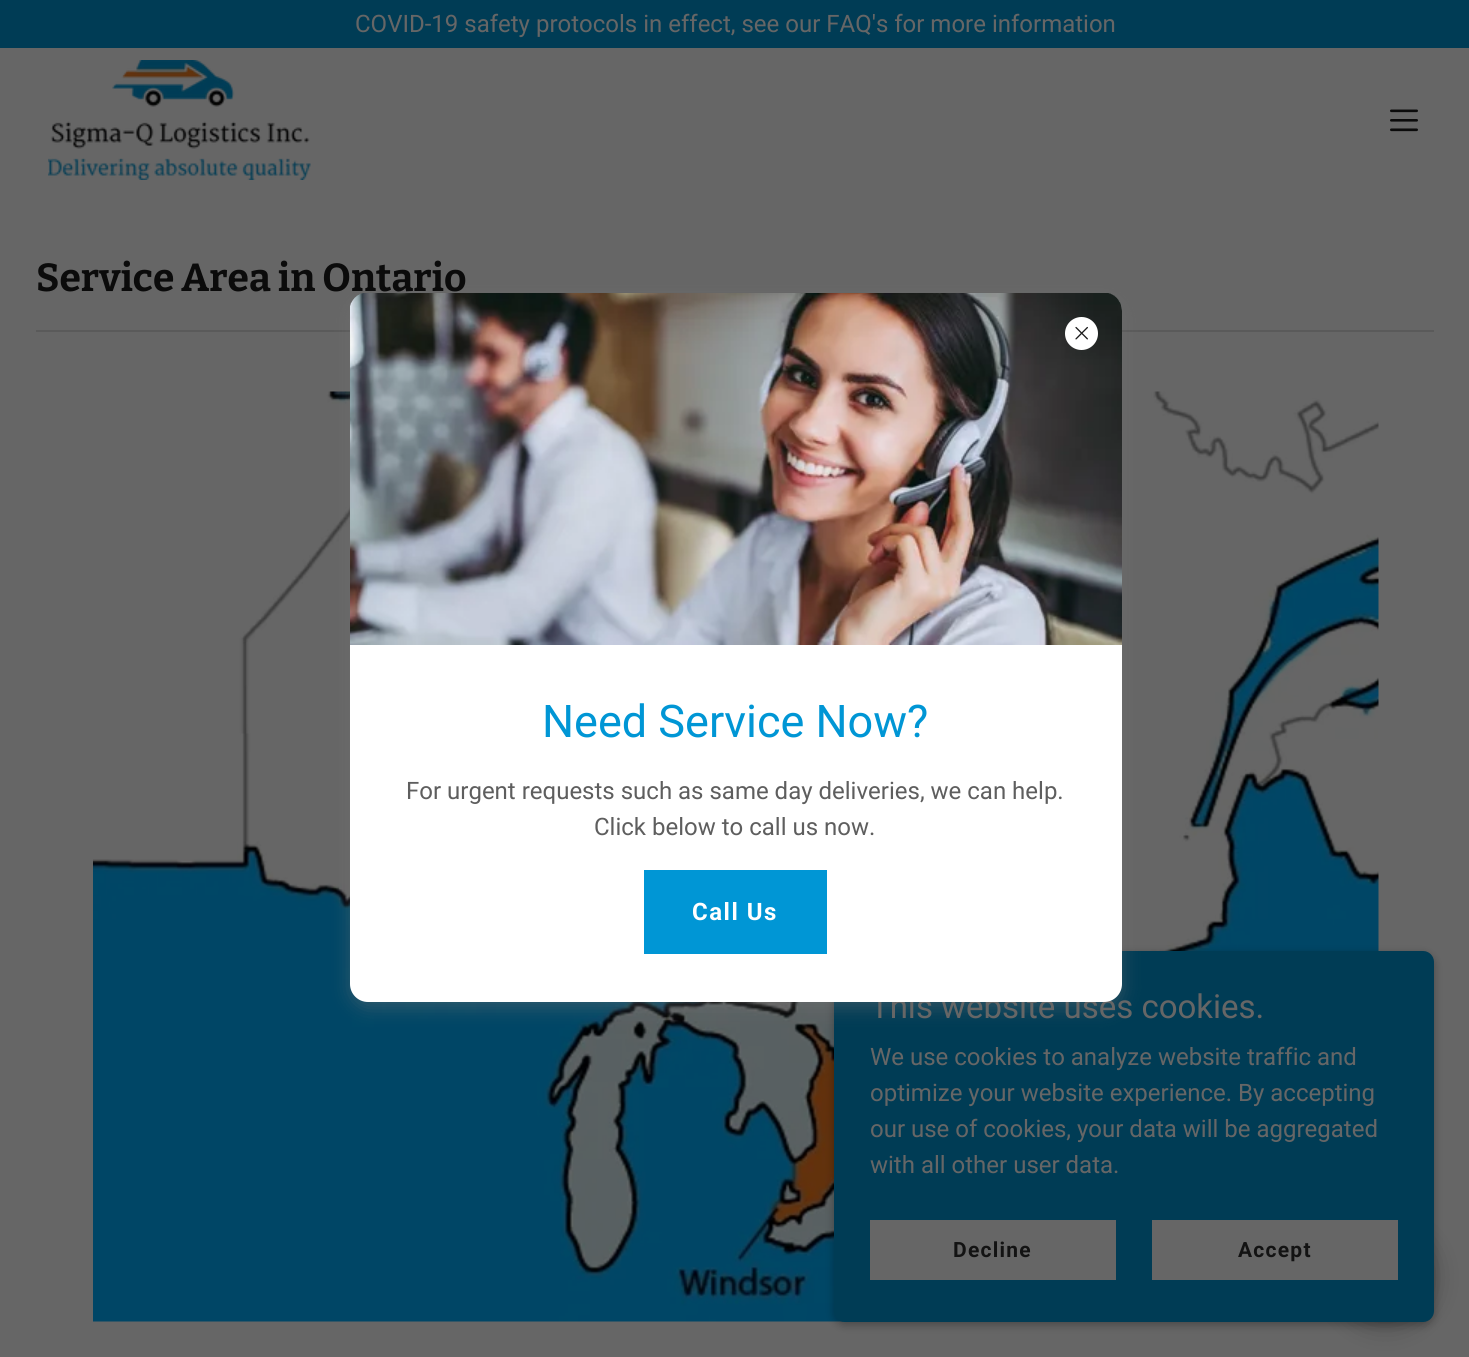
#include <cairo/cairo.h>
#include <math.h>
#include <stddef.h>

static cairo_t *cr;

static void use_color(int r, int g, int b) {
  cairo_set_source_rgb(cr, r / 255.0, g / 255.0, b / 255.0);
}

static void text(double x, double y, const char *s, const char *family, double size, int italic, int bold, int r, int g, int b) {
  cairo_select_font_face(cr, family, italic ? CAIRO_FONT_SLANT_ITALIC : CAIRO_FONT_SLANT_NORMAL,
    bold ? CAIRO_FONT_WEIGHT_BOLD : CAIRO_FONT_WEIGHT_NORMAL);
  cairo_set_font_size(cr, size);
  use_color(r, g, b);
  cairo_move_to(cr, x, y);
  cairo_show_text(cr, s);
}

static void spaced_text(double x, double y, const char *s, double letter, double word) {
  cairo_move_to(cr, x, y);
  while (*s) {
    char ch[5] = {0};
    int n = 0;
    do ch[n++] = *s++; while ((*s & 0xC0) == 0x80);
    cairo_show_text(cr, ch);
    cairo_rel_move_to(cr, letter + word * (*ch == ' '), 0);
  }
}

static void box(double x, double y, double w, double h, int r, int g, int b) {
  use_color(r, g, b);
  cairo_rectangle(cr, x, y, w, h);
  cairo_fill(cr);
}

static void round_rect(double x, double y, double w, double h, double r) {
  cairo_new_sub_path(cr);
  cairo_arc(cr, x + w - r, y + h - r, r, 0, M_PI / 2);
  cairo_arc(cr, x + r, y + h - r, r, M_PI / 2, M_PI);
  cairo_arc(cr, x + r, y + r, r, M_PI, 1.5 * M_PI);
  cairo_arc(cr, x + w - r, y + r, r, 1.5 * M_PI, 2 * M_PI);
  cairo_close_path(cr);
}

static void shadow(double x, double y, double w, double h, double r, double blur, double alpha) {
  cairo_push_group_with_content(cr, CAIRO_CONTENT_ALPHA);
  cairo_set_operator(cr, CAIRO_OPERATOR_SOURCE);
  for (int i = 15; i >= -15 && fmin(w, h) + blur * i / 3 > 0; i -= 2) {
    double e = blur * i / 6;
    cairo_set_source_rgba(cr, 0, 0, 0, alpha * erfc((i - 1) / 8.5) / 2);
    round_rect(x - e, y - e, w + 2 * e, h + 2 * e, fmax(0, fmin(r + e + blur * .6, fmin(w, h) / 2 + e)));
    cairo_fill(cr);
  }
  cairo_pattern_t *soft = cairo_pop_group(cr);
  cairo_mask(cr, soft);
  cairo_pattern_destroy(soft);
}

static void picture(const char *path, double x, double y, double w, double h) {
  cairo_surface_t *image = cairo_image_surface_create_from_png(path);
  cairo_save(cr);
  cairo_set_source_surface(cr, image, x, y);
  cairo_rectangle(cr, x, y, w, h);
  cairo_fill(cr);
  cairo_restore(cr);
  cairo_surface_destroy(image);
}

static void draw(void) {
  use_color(102, 102, 102);
  cairo_paint(cr);
  box(0, 0, 1469, 48, 0, 60, 85);
  picture("img_01.png", 48, 60, 263, 120);
  picture("img_02.png", 1390, 109, 28, 23);
  box(36, 330, 1398, 2, 90, 90, 90);
  picture("img_03.png", 93, 391, 1286, 931);
  use_color(0, 0, 0);
  shadow(834, 954, 600, 371, 11, 4.5, 0.3);
  shadow(1337, 1229, 97, 97, 48.5, 13.5, 0.25);
  use_color(0, 60, 85);
  round_rect(834, 951, 600, 371, 11);
  cairo_fill(cr);
  use_color(117, 117, 117);
  shadow(350, 299, 772, 709, 18, 9, 0.4);
  box(870, 1220, 246, 60, 102, 102, 102);
  box(1152, 1220, 246, 60, 102, 102, 102);
  text(355, 32, "COVID-19 safety protocols in effect, see our FAQ's for more information", "Roboto", 24, 0, 0, 102, 102, 102);
  text(36, 291, "Service Area in Ontario", "Bitter Thin", 39, 0, 0, 11, 11, 11);
  text(870, 1018, "This website uses cookies.", "Roboto", 33, 0, 0, 102, 102, 102);
  use_color(255, 255, 255);
  round_rect(350, 293, 772, 709, 18);
  cairo_fill(cr);
  picture("img_05.png", 350, 293, 772, 352);
  cairo_arc(cr, 1081.5, 333.5, 16.5, 0, 2 * M_PI);
  cairo_fill(cr);
  picture("img_04.png", 1075, 326, 13, 14);
  box(644, 870, 183, 84, 0, 150, 213);
  cairo_select_font_face(cr, "Roboto", CAIRO_FONT_SLANT_NORMAL, CAIRO_FONT_WEIGHT_BOLD);
  cairo_set_font_size(cr, 24);
  use_color(255, 255, 255);
  spaced_text(692, 920, "Call Us", 1.5, 0);
  text(594, 835, "Click below to call us now.", "Roboto", 24, 0, 0, 94, 94, 94);
  text(406, 799, "For urgent requests such as same day deliveries, we can help.", "Roboto", 24, 0, 0, 94, 94, 94);
  text(542, 737, "Need Service Now?", "Roboto", 45, 0, 0, 0, 150, 213);
  text(870, 1065, "We use cookies to analyze website traffic and", "Roboto", 24, 0, 0, 102, 102, 102);
  text(870, 1101, "optimize your website experience. By accepting", "Roboto", 24, 0, 0, 102, 102, 102);
  text(870, 1137, "our use of cookies, your data will be aggregated", "Roboto", 24, 0, 0, 102, 102, 102);
  text(870, 1173, "with all other user data.", "Roboto", 24, 0, 0, 102, 102, 102);
  cairo_select_font_face(cr, "Roboto", CAIRO_FONT_SLANT_NORMAL, CAIRO_FONT_WEIGHT_BOLD);
  cairo_set_font_size(cr, 21);
  use_color(19, 19, 19);
  spaced_text(953, 1257, "Decline", 1.25, 0);
  spaced_text(1238, 1257, "Accept", 1.25, 0);
}

int main(void) {
  cairo_surface_t *surface = cairo_image_surface_create(CAIRO_FORMAT_RGB24, 1469, 1357);
  cr = cairo_create(surface);
  cairo_font_options_t *options = cairo_font_options_create();
  cairo_font_options_set_hint_metrics(options, CAIRO_HINT_METRICS_OFF);
  cairo_font_options_set_hint_style(options, CAIRO_HINT_STYLE_NONE);
  cairo_set_font_options(cr, options);
  cairo_set_miter_limit(cr, 4);
  draw();
  cairo_surface_write_to_png(surface, "out.png");
  cairo_font_options_destroy(options);
  cairo_destroy(cr);
  cairo_surface_destroy(surface);
  return 0;
}
